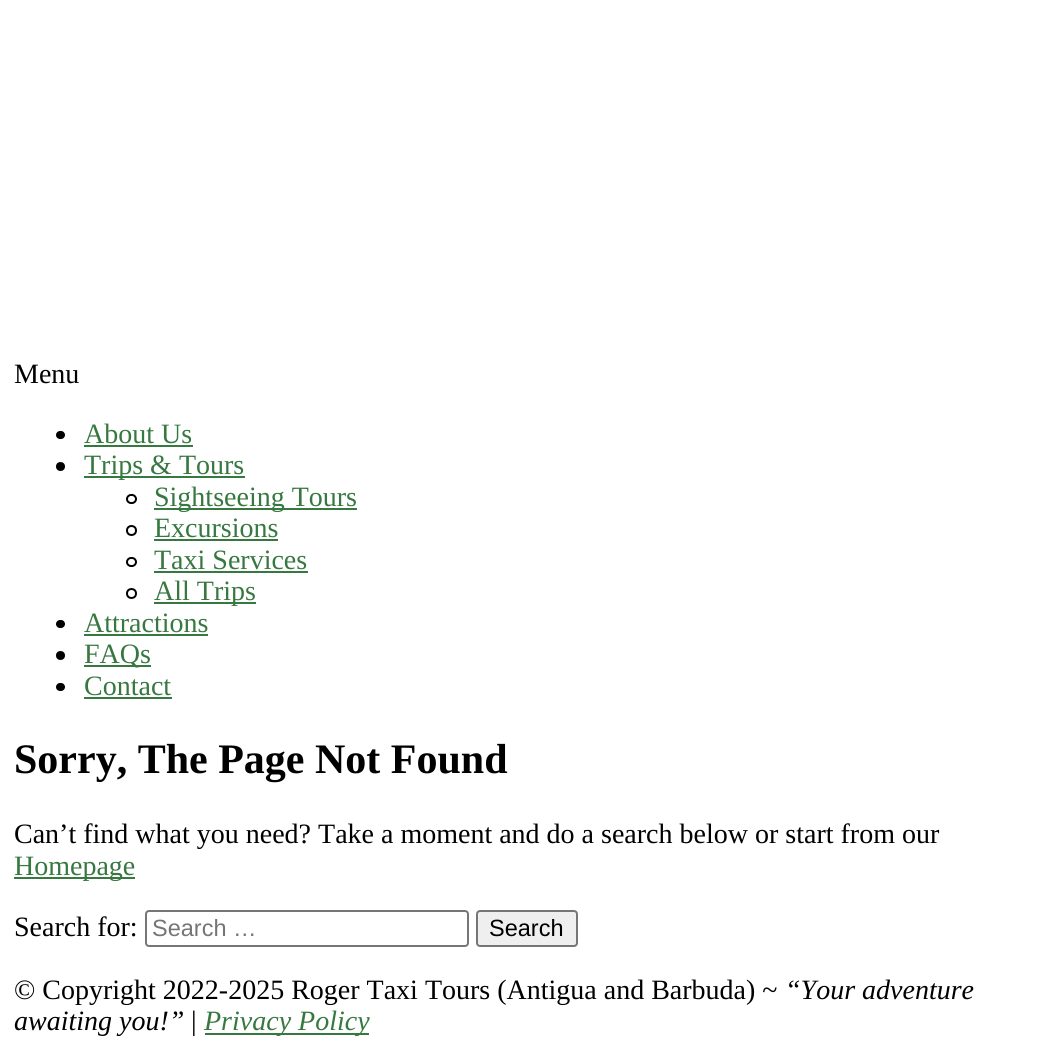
#include <cairo/cairo.h>
#include <math.h>
#include <stddef.h>

static cairo_t *cr;

static void use_color(int r, int g, int b) {
  cairo_set_source_rgb(cr, r / 255.0, g / 255.0, b / 255.0);
}

static void text(double x, double y, const char *s, const char *family, double size, int italic, int bold, int r, int g, int b) {
  cairo_select_font_face(cr, family, italic ? CAIRO_FONT_SLANT_ITALIC : CAIRO_FONT_SLANT_NORMAL,
    bold ? CAIRO_FONT_WEIGHT_BOLD : CAIRO_FONT_WEIGHT_NORMAL);
  cairo_set_font_size(cr, size);
  use_color(r, g, b);
  cairo_move_to(cr, x, y);
  cairo_show_text(cr, s);
}

static void box(double x, double y, double w, double h, int r, int g, int b) {
  use_color(r, g, b);
  cairo_rectangle(cr, x, y, w, h);
  cairo_fill(cr);
}

static void round_rect(double x, double y, double w, double h, double r) {
  cairo_new_sub_path(cr);
  cairo_arc(cr, x + w - r, y + h - r, r, 0, M_PI / 2);
  cairo_arc(cr, x + r, y + h - r, r, M_PI / 2, M_PI);
  cairo_arc(cr, x + r, y + r, r, M_PI, 1.5 * M_PI);
  cairo_arc(cr, x + w - r, y + r, r, 1.5 * M_PI, 2 * M_PI);
  cairo_close_path(cr);
}

static void draw(void) {
  use_color(255, 255, 255);
  cairo_paint(cr);
  use_color(0, 0, 0);
  round_rect(56, 431, 9, 8, 4);
  cairo_fill(cr);
  box(84, 445, 109, 2, 54, 120, 64);
  use_color(0, 0, 0);
  cairo_arc(cr, 60.5, 466.5, 4.5, 0, 2 * M_PI);
  cairo_fill(cr);
  box(84, 476, 161, 2, 54, 120, 64);
  round_rect(127, 495, 9, 8, 4);
  use_color(0, 0, 0);
  cairo_stroke(cr);
  box(154, 508, 203, 2, 54, 120, 64);
  cairo_arc(cr, 131.5, 530.5, 4.5, 0, 2 * M_PI);
  use_color(0, 0, 0);
  cairo_stroke(cr);
  box(154, 539, 124, 2, 54, 120, 64);
  round_rect(127, 558, 9, 8, 4);
  use_color(0, 0, 0);
  cairo_stroke(cr);
  box(154, 571, 154, 2, 54, 120, 64);
  cairo_arc(cr, 131.5, 593.5, 4.5, 0, 2 * M_PI);
  use_color(0, 0, 0);
  cairo_stroke(cr);
  box(154, 602, 102, 2, 54, 120, 64);
  use_color(0, 0, 0);
  round_rect(56, 620, 9, 8, 4);
  cairo_fill(cr);
  box(84, 634, 124, 2, 54, 120, 64);
  use_color(0, 0, 0);
  cairo_arc(cr, 60.5, 655.5, 4.5, 0, 2 * M_PI);
  cairo_fill(cr);
  box(84, 665, 67, 2, 54, 120, 64);
  use_color(0, 0, 0);
  round_rect(56, 683, 9, 8, 4);
  cairo_fill(cr);
  box(84, 697, 88, 2, 54, 120, 64);
  box(14, 877, 121, 2, 54, 120, 64);
  round_rect(146, 911, 322, 35, 3);
  use_color(118, 118, 118);
  cairo_stroke(cr);
  use_color(239, 239, 239);
  round_rect(477, 911, 100, 35, 3);
  cairo_fill_preserve(cr);
  use_color(118, 118, 118);
  cairo_stroke(cr);
  box(205, 1033, 164, 2, 54, 120, 64);
  text(14, 383, "Menu", "Liberation Serif", 28, 0, 0, 0, 0, 0);
  text(84, 443, "About Us", "Liberation Serif", 28, 0, 0, 54, 120, 64);
  text(84, 474, "Trips & Tours", "Liberation Serif", 28, 0, 0, 54, 120, 64);
  text(154, 506, "Sightseeing Tours", "Liberation Serif", 28, 0, 0, 54, 120, 64);
  text(154, 537, "Excursions", "Liberation Serif", 28, 0, 0, 54, 120, 64);
  text(154, 569, "Taxi Services", "Liberation Serif", 28, 0, 0, 54, 120, 64);
  text(154, 600, "All Trips", "Liberation Serif", 28, 0, 0, 54, 120, 64);
  text(84, 632, "Attractions", "Liberation Serif", 28, 0, 0, 54, 120, 64);
  text(84, 663, "FAQs", "Liberation Serif", 28, 0, 0, 54, 120, 64);
  text(84, 695, "Contact", "Liberation Serif", 28, 0, 0, 54, 120, 64);
  text(14, 773, "Sorry, The Page Not Found", "Liberation Serif", 42, 0, 1, 0, 0, 0);
  text(14, 843, "Can’t find what you need? Take a moment and do a search below or start from our", "Liberation Serif", 28, 0, 0, 0, 0, 0);
  text(14, 875, "Homepage", "Liberation Serif", 28, 0, 0, 54, 120, 64);
  text(14, 936, "Search for:", "Liberation Serif", 28, 0, 0, 0, 0, 0);
  text(152, 936, "Search …", "Liberation Sans", 23.5, 0, 0, 117, 117, 117);
  text(489, 936, "Search", "Liberation Sans", 23.5, 0, 0, 0, 0, 0);
  text(14, 999, "© Copyright 2022-2025 Roger Taxi Tours (Antigua and Barbuda) ~", "Liberation Serif", 28, 0, 0, 0, 0, 0);
  text(785, 999, "“Your adventure", "Liberation Serif", 28, 1, 0, 0, 0, 0);
  text(14, 1030, "awaiting you!”", "Liberation Serif", 28, 1, 0, 0, 0, 0);
  text(191, 1030, "|", "Liberation Serif", 28, 0, 0, 0, 0, 0);
  text(204, 1030, "Privacy Policy", "Liberation Serif", 28, 1, 0, 54, 120, 64);
}

int main(void) {
  cairo_surface_t *surface = cairo_image_surface_create(CAIRO_FORMAT_RGB24, 1059, 1044);
  cr = cairo_create(surface);
  cairo_font_options_t *options = cairo_font_options_create();
  cairo_font_options_set_hint_metrics(options, CAIRO_HINT_METRICS_OFF);
  cairo_font_options_set_hint_style(options, CAIRO_HINT_STYLE_NONE);
  cairo_set_font_options(cr, options);
  cairo_set_miter_limit(cr, 4);
  draw();
  cairo_surface_write_to_png(surface, "out.png");
  cairo_font_options_destroy(options);
  cairo_destroy(cr);
  cairo_surface_destroy(surface);
  return 0;
}
